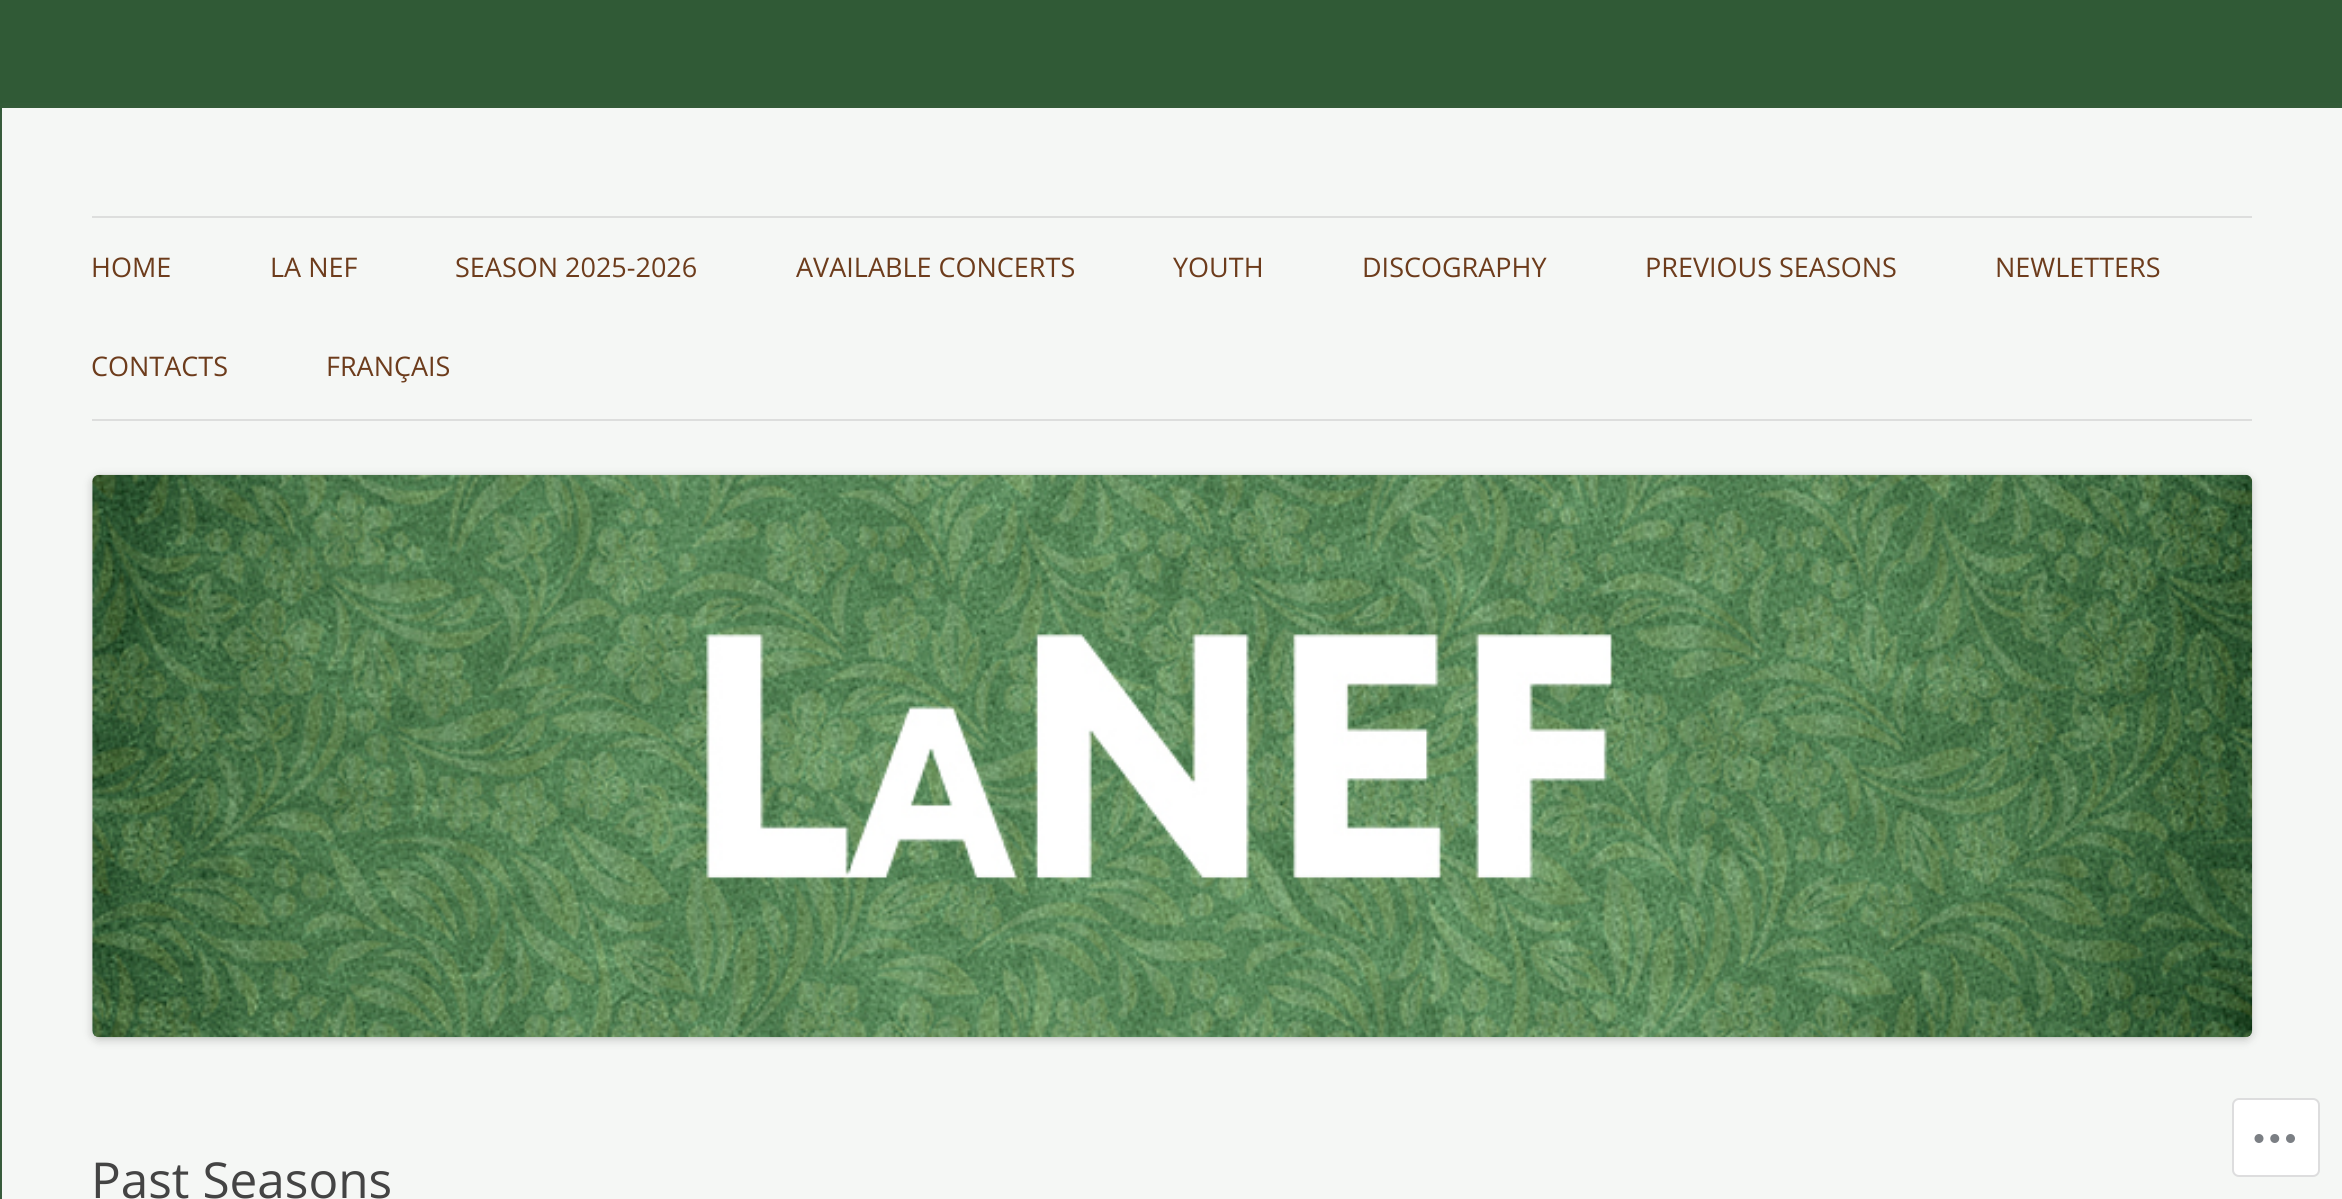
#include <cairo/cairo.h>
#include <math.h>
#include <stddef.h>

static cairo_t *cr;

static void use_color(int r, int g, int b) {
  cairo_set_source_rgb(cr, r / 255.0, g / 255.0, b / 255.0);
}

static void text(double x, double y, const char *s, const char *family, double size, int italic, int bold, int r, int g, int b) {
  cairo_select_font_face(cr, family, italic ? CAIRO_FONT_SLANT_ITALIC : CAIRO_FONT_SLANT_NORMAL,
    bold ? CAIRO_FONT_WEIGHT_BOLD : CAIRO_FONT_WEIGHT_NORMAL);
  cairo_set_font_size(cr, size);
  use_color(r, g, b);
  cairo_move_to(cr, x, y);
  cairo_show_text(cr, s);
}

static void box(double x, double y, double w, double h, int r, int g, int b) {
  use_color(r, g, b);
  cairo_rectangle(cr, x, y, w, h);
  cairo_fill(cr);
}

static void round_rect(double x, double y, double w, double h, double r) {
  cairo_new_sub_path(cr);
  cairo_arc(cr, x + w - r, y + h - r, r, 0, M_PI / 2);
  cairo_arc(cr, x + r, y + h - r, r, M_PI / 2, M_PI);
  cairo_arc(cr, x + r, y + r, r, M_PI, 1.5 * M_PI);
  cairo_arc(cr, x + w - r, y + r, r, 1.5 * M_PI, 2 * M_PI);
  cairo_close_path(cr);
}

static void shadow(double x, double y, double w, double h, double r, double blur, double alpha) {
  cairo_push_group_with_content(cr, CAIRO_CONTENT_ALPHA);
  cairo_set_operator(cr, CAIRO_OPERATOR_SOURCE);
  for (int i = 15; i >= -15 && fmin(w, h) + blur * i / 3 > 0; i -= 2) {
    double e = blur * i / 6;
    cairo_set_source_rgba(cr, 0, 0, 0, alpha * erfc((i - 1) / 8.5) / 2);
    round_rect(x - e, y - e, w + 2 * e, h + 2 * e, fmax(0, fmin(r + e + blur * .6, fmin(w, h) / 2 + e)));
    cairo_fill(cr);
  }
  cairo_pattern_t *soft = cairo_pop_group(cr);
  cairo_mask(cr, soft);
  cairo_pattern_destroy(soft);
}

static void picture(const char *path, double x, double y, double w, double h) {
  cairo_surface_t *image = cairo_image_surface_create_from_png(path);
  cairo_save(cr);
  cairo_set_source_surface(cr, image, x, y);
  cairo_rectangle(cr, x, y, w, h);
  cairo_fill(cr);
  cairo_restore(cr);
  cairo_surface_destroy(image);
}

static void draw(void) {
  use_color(48, 90, 54);
  cairo_paint(cr);
  use_color(100, 100, 100);
  shadow(2, 113, 2340, 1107, 0, 7, 0.3);
  box(2, 108, 2340, 1091, 245, 247, 245);
  box(92, 216, 2160, 2, 221, 222, 221);
  box(92, 419, 2160, 2, 221, 222, 221);
  use_color(0, 0, 0);
  shadow(92, 477, 2160, 563, 7, 4.5, 0.2);
  picture("img_01.png", 92, 474, 2161, 564);
  use_color(255, 255, 255);
  round_rect(2233, 1099, 86, 77, 6);
  cairo_fill_preserve(cr);
  use_color(221, 221, 222);
  cairo_stroke(cr);
  picture("img_02.png", 2254, 1134, 41, 9);
  text(91, 277, "HOME", "Open Sans", 27, 0, 0, 109, 60, 28);
  text(270, 277, "LA NEF", "Open Sans", 27, 0, 0, 109, 60, 28);
  text(455, 277, "SEASON 2025-2026", "Open Sans", 27, 0, 0, 109, 60, 28);
  text(796, 277, "AVAILABLE CONCERTS", "Open Sans", 27, 0, 0, 109, 60, 28);
  text(1173, 277, "YOUTH", "Open Sans", 27, 0, 0, 109, 60, 28);
  text(1362, 277, "DISCOGRAPHY", "Open Sans", 27, 0, 0, 109, 60, 28);
  text(1645, 277, "PREVIOUS SEASONS", "Open Sans", 27, 0, 0, 109, 60, 28);
  text(1995, 277, "NEWLETTERS", "Open Sans", 27, 0, 0, 109, 60, 28);
  text(91, 376, "CONTACTS", "Open Sans", 27, 0, 0, 109, 60, 28);
  text(326, 376, "FRANÇAIS", "Open Sans", 27, 0, 0, 109, 60, 28);
  text(91, 1198, "Past Seasons", "Open Sans", 49.5, 0, 0, 68, 68, 68);
}

int main(void) {
  cairo_surface_t *surface = cairo_image_surface_create(CAIRO_FORMAT_RGB24, 2342, 1199);
  cr = cairo_create(surface);
  cairo_font_options_t *options = cairo_font_options_create();
  cairo_font_options_set_hint_metrics(options, CAIRO_HINT_METRICS_OFF);
  cairo_font_options_set_hint_style(options, CAIRO_HINT_STYLE_NONE);
  cairo_set_font_options(cr, options);
  cairo_set_miter_limit(cr, 4);
  draw();
  cairo_surface_write_to_png(surface, "out.png");
  cairo_font_options_destroy(options);
  cairo_destroy(cr);
  cairo_surface_destroy(surface);
  return 0;
}
